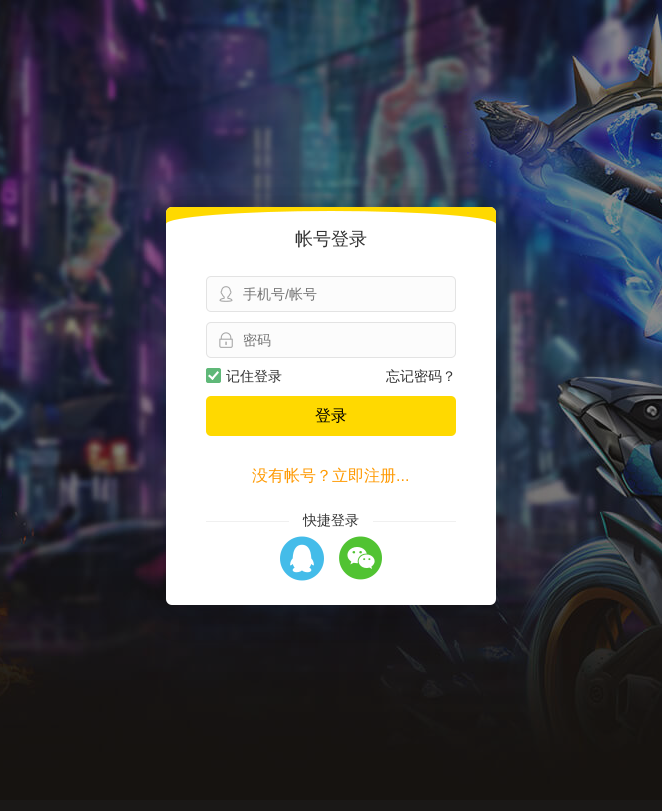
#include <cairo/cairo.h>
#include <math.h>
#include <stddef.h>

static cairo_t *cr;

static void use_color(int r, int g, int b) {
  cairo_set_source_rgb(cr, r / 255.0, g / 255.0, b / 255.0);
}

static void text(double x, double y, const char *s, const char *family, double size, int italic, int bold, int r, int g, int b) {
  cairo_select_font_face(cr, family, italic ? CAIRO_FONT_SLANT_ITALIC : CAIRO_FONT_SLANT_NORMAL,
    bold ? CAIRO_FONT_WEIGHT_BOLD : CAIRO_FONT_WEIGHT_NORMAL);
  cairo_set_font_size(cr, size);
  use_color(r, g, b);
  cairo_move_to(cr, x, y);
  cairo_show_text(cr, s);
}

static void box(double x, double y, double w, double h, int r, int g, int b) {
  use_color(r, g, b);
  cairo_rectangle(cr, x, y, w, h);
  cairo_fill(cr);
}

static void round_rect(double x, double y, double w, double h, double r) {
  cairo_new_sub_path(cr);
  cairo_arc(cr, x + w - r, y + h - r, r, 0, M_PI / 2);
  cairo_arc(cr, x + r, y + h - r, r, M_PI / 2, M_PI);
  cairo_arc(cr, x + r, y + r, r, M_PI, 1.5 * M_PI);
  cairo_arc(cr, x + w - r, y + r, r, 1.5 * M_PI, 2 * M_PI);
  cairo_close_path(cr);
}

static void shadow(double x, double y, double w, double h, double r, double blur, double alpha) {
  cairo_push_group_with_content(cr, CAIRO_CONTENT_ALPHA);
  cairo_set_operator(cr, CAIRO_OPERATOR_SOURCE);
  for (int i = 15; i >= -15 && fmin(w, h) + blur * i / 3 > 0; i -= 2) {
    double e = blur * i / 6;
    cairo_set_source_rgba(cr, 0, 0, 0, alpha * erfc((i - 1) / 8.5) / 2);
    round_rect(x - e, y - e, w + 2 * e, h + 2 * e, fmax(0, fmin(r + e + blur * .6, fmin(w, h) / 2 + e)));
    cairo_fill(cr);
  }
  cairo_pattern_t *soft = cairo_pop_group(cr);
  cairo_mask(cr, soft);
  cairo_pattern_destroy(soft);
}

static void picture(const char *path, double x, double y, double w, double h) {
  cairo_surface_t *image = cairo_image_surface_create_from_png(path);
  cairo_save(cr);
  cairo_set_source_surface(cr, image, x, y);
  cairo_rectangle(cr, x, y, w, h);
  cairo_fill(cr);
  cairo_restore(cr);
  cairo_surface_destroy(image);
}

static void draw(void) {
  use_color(26, 24, 23);
  cairo_paint(cr);
  picture("img_01.png", 0, 0, 662, 800);
  use_color(0, 0, 0);
  shadow(167, 208, 330, 398, 6, 25, 0.3);
  use_color(255, 255, 255);
  round_rect(166, 207, 330, 398, 6);
  cairo_fill(cr);
  use_color(255, 217, 0);
  cairo_new_path(cr);
  cairo_move_to(cr, 172, 207);
  cairo_line_to(cr, 490, 207);
  cairo_curve_to(cr, 493.5, 207, 496, 209.5, 496, 213);
  cairo_line_to(cr, 496, 227);
  cairo_line_to(cr, 166, 227);
  cairo_line_to(cr, 166, 213);
  cairo_curve_to(cr, 166, 209.5, 168.5, 207, 172, 207);
  cairo_close_path(cr);
  cairo_fill(cr);
  use_color(255, 255, 255);
  cairo_new_path(cr);
  cairo_move_to(cr, 331, 211);
  cairo_curve_to(cr, 422, 211, 496, 217, 496, 224);
  cairo_line_to(cr, 496, 236);
  cairo_line_to(cr, 166, 236);
  cairo_line_to(cr, 166, 224);
  cairo_curve_to(cr, 166, 217, 240, 211, 331, 211);
  cairo_close_path(cr);
  cairo_fill(cr);
  use_color(252, 252, 252);
  round_rect(206.5, 276.5, 249, 35, 4.5);
  cairo_fill_preserve(cr);
  use_color(227, 227, 227);
  cairo_set_line_width(cr, 1);
  cairo_stroke(cr);
  picture("img_02.png", 219, 286, 14, 16);
  use_color(252, 252, 252);
  round_rect(206.5, 322.5, 249, 35, 4.5);
  cairo_fill_preserve(cr);
  use_color(227, 227, 227);
  cairo_stroke(cr);
  picture("img_03.png", 219, 332, 14, 16);
  use_color(95, 184, 120);
  round_rect(206.5, 368.5, 14, 14, 1.5);
  cairo_fill_preserve(cr);
  cairo_stroke(cr);
  use_color(255, 255, 255);
  cairo_new_path(cr);
  cairo_move_to(cr, 217.5, 371);
  cairo_line_to(cr, 219, 372.5);
  cairo_line_to(cr, 212.5, 380);
  cairo_line_to(cr, 211, 378.5);
  cairo_close_path(cr);
  cairo_fill(cr);
  cairo_new_path(cr);
  cairo_move_to(cr, 209.5, 374.5);
  cairo_line_to(cr, 214, 378.5);
  cairo_line_to(cr, 212.5, 380);
  cairo_line_to(cr, 208, 376);
  cairo_close_path(cr);
  cairo_fill(cr);
  use_color(255, 217, 0);
  round_rect(206, 396, 250, 40, 5);
  cairo_fill(cr);
  box(206, 521, 250, 1, 240, 240, 240);
  box(289, 521, 84, 1, 255, 255, 255);
  picture("img_04.png", 280, 536, 44, 45);
  picture("img_05.png", 339, 536, 43, 44);
  text(295, 245, "帐号登录", "WenQuanYi Zen Hei Medium", 18, 0, 0, 51, 51, 51);
  text(243, 299, "手机号", "WenQuanYi Zen Hei Medium", 14, 0, 0, 117, 117, 117);
  text(285, 299, "/", "Liberation Sans", 14, 0, 0, 117, 117, 117);
  text(289, 299, "帐号", "WenQuanYi Zen Hei Medium", 14, 0, 0, 117, 117, 117);
  text(243, 345, "密码", "WenQuanYi Zen Hei Medium", 14, 0, 0, 117, 117, 117);
  text(226, 381, "记住登录", "WenQuanYi Zen Hei Medium", 14, 0, 0, 51, 51, 51);
  text(386, 381, "忘记密码？", "WenQuanYi Zen Hei Medium", 14, 0, 0, 51, 51, 51);
  text(315, 421, "登录", "WenQuanYi Zen Hei Medium", 16, 0, 0, 0, 0, 0);
  text(252, 481, "没有帐号？立即注册", "WenQuanYi Zen Hei Medium", 16, 0, 0, 255, 153, 0);
  text(396, 481, "...", "Liberation Sans", 16, 0, 0, 255, 153, 0);
  text(303, 525, "快捷登录", "WenQuanYi Zen Hei Medium", 14, 0, 0, 51, 51, 51);
}

int main(void) {
  cairo_surface_t *surface = cairo_image_surface_create(CAIRO_FORMAT_RGB24, 662, 811);
  cr = cairo_create(surface);
  cairo_font_options_t *options = cairo_font_options_create();
  cairo_font_options_set_hint_metrics(options, CAIRO_HINT_METRICS_OFF);
  cairo_font_options_set_hint_style(options, CAIRO_HINT_STYLE_NONE);
  cairo_set_font_options(cr, options);
  cairo_set_miter_limit(cr, 4);
  draw();
  cairo_surface_write_to_png(surface, "out.png");
  cairo_font_options_destroy(options);
  cairo_destroy(cr);
  cairo_surface_destroy(surface);
  return 0;
}
